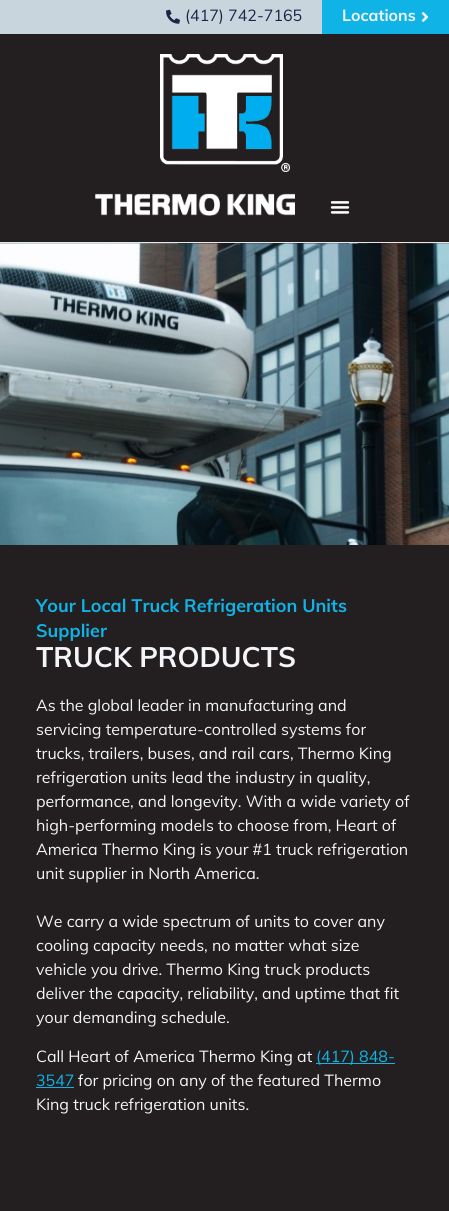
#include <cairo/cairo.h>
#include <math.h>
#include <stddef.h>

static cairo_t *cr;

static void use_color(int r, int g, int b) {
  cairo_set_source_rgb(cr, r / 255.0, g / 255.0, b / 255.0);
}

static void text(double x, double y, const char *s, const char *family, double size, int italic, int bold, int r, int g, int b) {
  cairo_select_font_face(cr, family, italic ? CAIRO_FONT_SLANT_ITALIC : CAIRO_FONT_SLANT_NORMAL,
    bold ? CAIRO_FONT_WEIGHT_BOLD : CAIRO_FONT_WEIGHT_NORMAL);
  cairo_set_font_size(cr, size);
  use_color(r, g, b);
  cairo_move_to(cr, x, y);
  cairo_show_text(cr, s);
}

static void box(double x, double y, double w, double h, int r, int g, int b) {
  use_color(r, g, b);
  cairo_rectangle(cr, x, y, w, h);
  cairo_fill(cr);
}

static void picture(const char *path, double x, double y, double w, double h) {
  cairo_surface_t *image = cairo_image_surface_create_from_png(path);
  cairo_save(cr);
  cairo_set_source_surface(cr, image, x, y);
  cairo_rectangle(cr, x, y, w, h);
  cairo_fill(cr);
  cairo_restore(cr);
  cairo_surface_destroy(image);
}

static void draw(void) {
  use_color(35, 31, 32);
  cairo_paint(cr);
  box(0, 0, 322, 34, 200, 213, 220);
  picture("img_01.png", 166, 9, 14, 15);
  box(322, 0, 127, 34, 16, 179, 230);
  picture("img_02.png", 421, 12, 8, 10);
  box(0, 242, 449, 1, 231, 231, 231);
  picture("img_03.png", 160, 54, 130, 118);
  picture("img_04.png", 95, 193, 200, 23);
  picture("img_05.png", 330, 201, 20, 13);
  picture("img_06.png", 0, 243, 449, 302);
  box(316, 1063, 79, 1, 16, 179, 230);
  box(36, 1087, 38, 1, 16, 179, 230);
  text(185, 21, "(417) 742-7165", "Muli", 16, 0, 0, 28, 36, 75);
  text(342, 21, "Locations", "Muli", 16, 0, 1, 243, 245, 248);
  text(36, 612, "Your Local Truck Refrigeration Units", "Muli", 18, 0, 1, 16, 179, 230);
  text(36, 637, "Supplier", "Muli", 18, 0, 1, 16, 179, 230);
  text(36, 667, "TRUCK PRODUCTS", "Muli", 28, 0, 1, 243, 245, 248);
  text(36, 711, "As the global leader in manufacturing and", "Muli", 16, 0, 0, 243, 245, 248);
  text(36, 735, "servicing temperature-controlled systems for", "Muli", 16, 0, 0, 243, 245, 248);
  text(36, 759, "trucks, trailers, buses, and rail cars, Thermo King", "Muli", 16, 0, 0, 243, 245, 248);
  text(36, 783, "refrigeration units lead the industry in quality,", "Muli", 16, 0, 0, 243, 245, 248);
  text(36, 807, "performance, and longevity. With a wide variety of", "Muli", 16, 0, 0, 243, 245, 248);
  text(36, 831, "high-performing models to choose from, Heart of", "Muli", 16, 0, 0, 243, 245, 248);
  text(36, 855, "America Thermo King is your #1 truck refrigeration", "Muli", 16, 0, 0, 243, 245, 248);
  text(36, 879, "unit supplier in North America.", "Muli", 16, 0, 0, 243, 245, 248);
  text(36, 927, "We carry a wide spectrum of units to cover any", "Muli", 16, 0, 0, 243, 245, 248);
  text(36, 951, "cooling capacity needs, no matter what size", "Muli", 16, 0, 0, 243, 245, 248);
  text(36, 975, "vehicle you drive. Thermo King truck products", "Muli", 16, 0, 0, 243, 245, 248);
  text(36, 999, "deliver the capacity, reliability, and uptime that fit", "Muli", 16, 0, 0, 243, 245, 248);
  text(36, 1023, "your demanding schedule.", "Muli", 16, 0, 0, 243, 245, 248);
  text(36, 1062, "Call Heart of America Thermo King at", "Muli", 16, 0, 0, 243, 245, 248);
  text(316, 1062, "(417) 848-", "Muli", 16, 0, 0, 16, 179, 230);
  text(36, 1086, "3547", "Muli", 16, 0, 0, 16, 179, 230);
  text(78, 1086, "for pricing on any of the featured Thermo", "Muli", 16, 0, 0, 243, 245, 248);
  text(36, 1110, "King truck refrigeration units.", "Muli", 16, 0, 0, 243, 245, 248);
}

int main(void) {
  cairo_surface_t *surface = cairo_image_surface_create(CAIRO_FORMAT_RGB24, 449, 1211);
  cr = cairo_create(surface);
  cairo_font_options_t *options = cairo_font_options_create();
  cairo_font_options_set_hint_metrics(options, CAIRO_HINT_METRICS_OFF);
  cairo_font_options_set_hint_style(options, CAIRO_HINT_STYLE_NONE);
  cairo_set_font_options(cr, options);
  cairo_set_miter_limit(cr, 4);
  draw();
  cairo_surface_write_to_png(surface, "out.png");
  cairo_font_options_destroy(options);
  cairo_destroy(cr);
  cairo_surface_destroy(surface);
  return 0;
}
